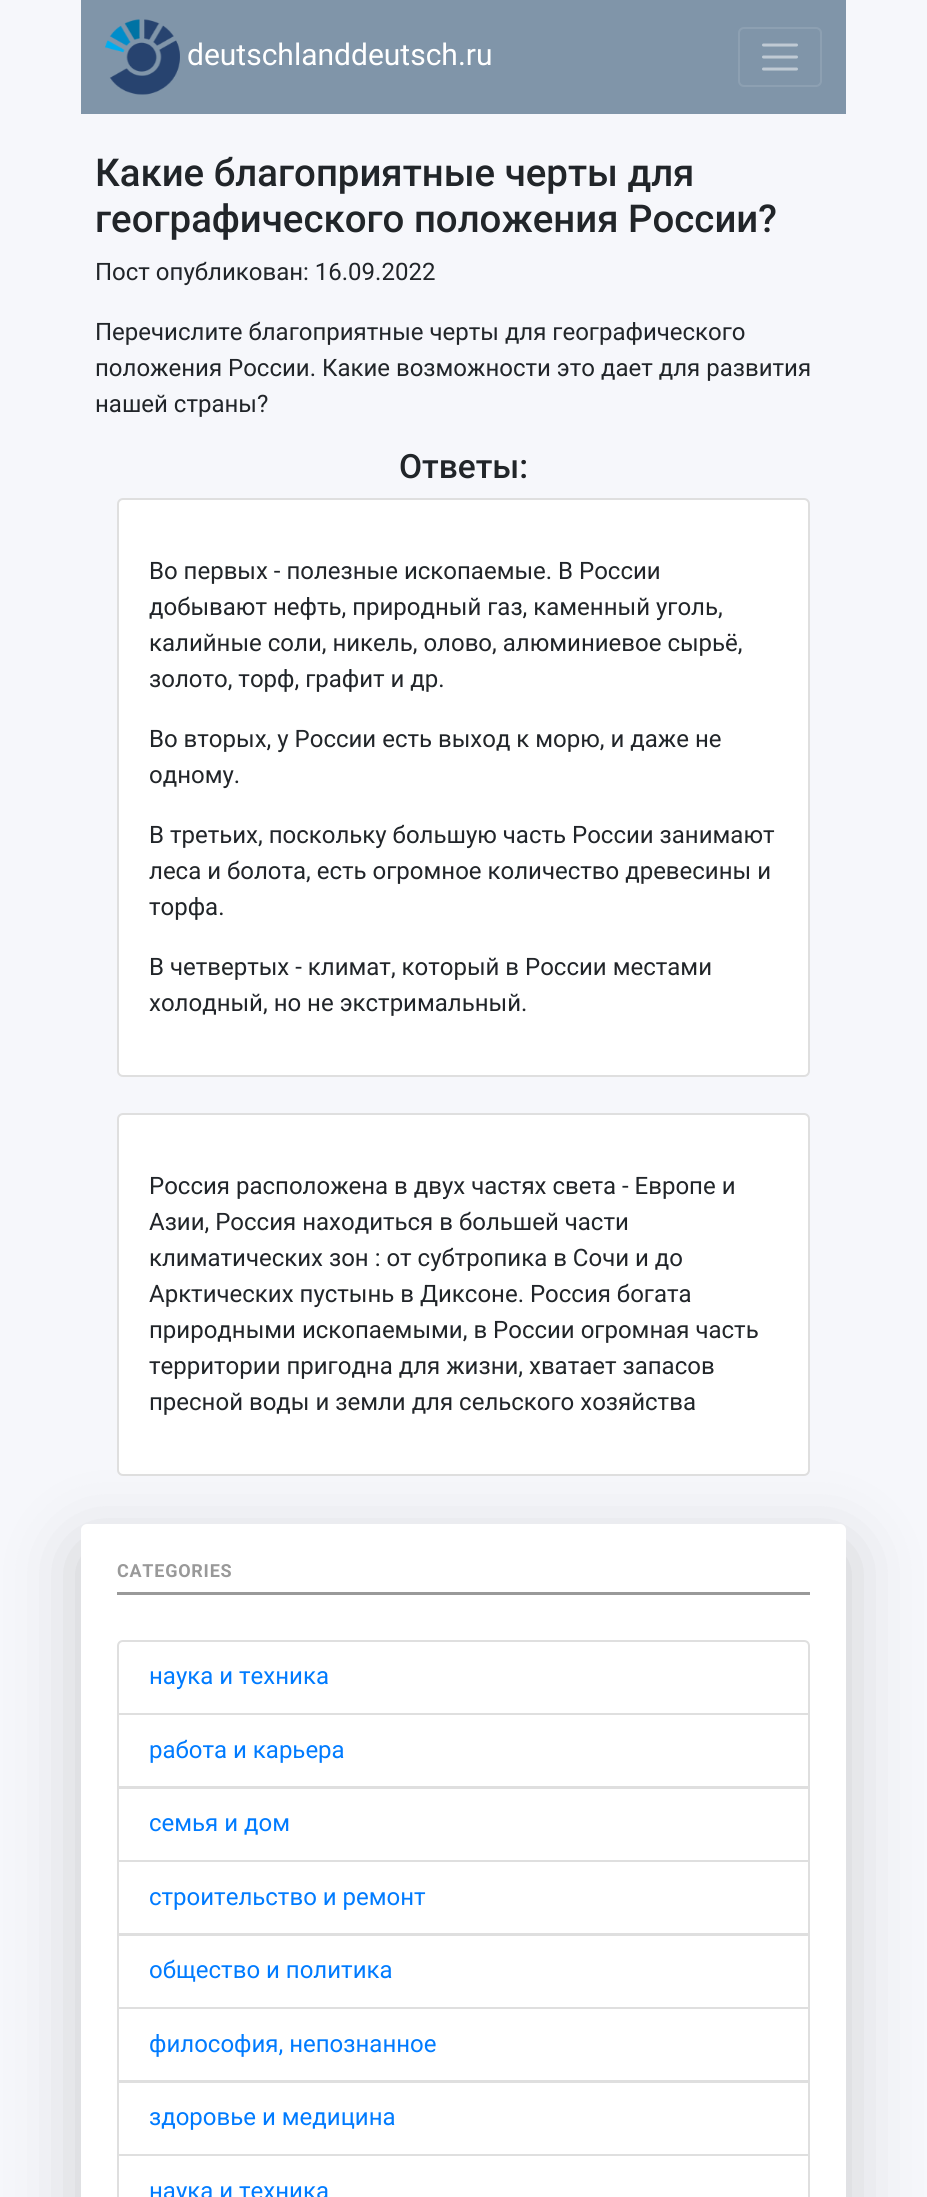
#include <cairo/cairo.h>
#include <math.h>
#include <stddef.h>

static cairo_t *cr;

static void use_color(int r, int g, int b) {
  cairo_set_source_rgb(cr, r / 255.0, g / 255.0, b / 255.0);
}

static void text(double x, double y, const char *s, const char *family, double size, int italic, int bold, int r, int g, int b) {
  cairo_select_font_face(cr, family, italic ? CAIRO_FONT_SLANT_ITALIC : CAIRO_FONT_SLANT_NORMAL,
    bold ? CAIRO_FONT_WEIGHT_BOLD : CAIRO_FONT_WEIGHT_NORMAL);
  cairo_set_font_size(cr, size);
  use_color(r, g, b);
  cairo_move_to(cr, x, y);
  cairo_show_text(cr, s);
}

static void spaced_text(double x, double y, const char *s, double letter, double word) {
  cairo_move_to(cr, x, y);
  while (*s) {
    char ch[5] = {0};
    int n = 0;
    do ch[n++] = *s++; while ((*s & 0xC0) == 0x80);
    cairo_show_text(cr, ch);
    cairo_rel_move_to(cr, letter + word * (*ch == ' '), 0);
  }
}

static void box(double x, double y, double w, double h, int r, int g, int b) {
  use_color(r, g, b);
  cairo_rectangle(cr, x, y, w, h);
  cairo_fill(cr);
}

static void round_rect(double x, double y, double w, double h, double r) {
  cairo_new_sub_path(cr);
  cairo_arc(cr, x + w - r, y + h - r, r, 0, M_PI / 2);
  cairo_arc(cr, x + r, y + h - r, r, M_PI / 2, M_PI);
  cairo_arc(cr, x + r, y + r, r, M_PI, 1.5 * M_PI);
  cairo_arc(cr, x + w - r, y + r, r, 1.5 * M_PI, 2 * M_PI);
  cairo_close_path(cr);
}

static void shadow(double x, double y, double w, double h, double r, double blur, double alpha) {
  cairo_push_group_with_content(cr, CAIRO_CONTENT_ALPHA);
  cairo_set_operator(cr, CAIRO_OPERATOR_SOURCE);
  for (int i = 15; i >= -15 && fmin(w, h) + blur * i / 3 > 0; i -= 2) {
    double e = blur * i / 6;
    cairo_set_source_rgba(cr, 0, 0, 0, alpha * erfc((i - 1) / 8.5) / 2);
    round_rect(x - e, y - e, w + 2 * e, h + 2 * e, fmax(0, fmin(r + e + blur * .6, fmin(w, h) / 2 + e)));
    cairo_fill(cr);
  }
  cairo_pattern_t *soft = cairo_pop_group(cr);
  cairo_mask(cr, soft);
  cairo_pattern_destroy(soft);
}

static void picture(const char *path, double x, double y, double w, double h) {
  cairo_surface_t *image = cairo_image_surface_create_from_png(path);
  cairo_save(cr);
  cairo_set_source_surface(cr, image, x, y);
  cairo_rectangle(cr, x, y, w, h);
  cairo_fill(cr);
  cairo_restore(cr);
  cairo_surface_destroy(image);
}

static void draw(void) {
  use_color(246, 247, 251);
  cairo_paint(cr);
  box(81, 0, 765, 114, 128, 149, 169);
  picture("img_01.png", 105, 19, 75, 76);
  round_rect(739, 28, 82, 58, 5);
  use_color(141, 160, 178);
  cairo_stroke(cr);
  cairo_new_path(cr);
  cairo_move_to(cr, 763.5, 45);
  cairo_line_to(cr, 796.5, 45);
  cairo_move_to(cr, 763.5, 57);
  cairo_line_to(cr, 796.5, 57);
  cairo_move_to(cr, 763.5, 69);
  cairo_line_to(cr, 796.5, 69);
  use_color(192, 202, 212);
  cairo_set_line_width(cr, 3);
  cairo_set_line_cap(cr, CAIRO_LINE_CAP_ROUND);
  cairo_stroke(cr);
  use_color(255, 255, 255);
  round_rect(118, 499, 691, 577, 5);
  cairo_fill_preserve(cr);
  use_color(223, 223, 223);
  cairo_set_line_width(cr, 2);
  cairo_set_line_cap(cr, CAIRO_LINE_CAP_BUTT);
  cairo_stroke(cr);
  use_color(255, 255, 255);
  round_rect(118, 1114, 691, 361, 5);
  cairo_fill_preserve(cr);
  use_color(223, 223, 223);
  cairo_stroke(cr);
  use_color(0, 0, 0);
  shadow(81, 1548, 765, 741, 6, 36, 0.18);
  use_color(255, 255, 255);
  round_rect(81, 1524, 765, 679, 6);
  cairo_fill(cr);
  box(117, 1592, 693, 3, 153, 153, 153);
  cairo_new_path(cr);
  cairo_move_to(cr, 123, 1641);
  cairo_line_to(cr, 804, 1641);
  cairo_curve_to(cr, 807, 1641, 809, 1643, 809, 1646);
  cairo_line_to(cr, 809, 1714);
  cairo_line_to(cr, 118, 1714);
  cairo_line_to(cr, 118, 1646);
  cairo_curve_to(cr, 118, 1643, 120, 1641, 123, 1641);
  cairo_close_path(cr);
  use_color(223, 223, 223);
  cairo_stroke(cr);
  cairo_rectangle(cr, 118, 1714, 691, 73);
  cairo_stroke(cr);
  cairo_rectangle(cr, 118, 1788, 691, 73);
  cairo_stroke(cr);
  cairo_rectangle(cr, 118, 1861, 691, 73);
  cairo_stroke(cr);
  cairo_rectangle(cr, 118, 1935, 691, 73);
  cairo_stroke(cr);
  cairo_rectangle(cr, 118, 2008, 691, 73);
  cairo_stroke(cr);
  cairo_rectangle(cr, 118, 2082, 691, 73);
  cairo_stroke(cr);
  cairo_rectangle(cr, 118, 2155, 691, 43);
  cairo_stroke(cr);
  text(187, 65, "deutschlanddeutsch.ru", "Roboto", 30, 0, 0, 255, 255, 255);
  text(95, 186, "Какие благоприятные черты для", "Roboto Medium", 38.4, 0, 0, 33, 37, 41);
  text(95, 232, "географического положения России?", "Roboto Medium", 38.4, 0, 0, 33, 37, 41);
  text(95, 280, "Пост опубликован: 16.09.2022", "Roboto", 24, 0, 0, 33, 37, 41);
  text(95, 340, "Перечислите благоприятные черты для географического", "Roboto", 24, 0, 0, 33, 37, 41);
  text(95, 376, "положения России. Какие возможности это дает для развития", "Roboto", 24, 0, 0, 33, 37, 41);
  text(95, 412, "нашей страны?", "Roboto", 24, 0, 0, 33, 37, 41);
  text(399, 478, "Ответы:", "Roboto Medium", 33.5, 0, 0, 33, 37, 41);
  text(149, 579, "Во первых - полезные ископаемые. В России", "Roboto", 24, 0, 0, 33, 37, 41);
  text(149, 615, "добывают нефть, природный газ, каменный уголь,", "Roboto", 24, 0, 0, 33, 37, 41);
  text(149, 651, "калийные соли, никель, олово, алюминиевое сырьё,", "Roboto", 24, 0, 0, 33, 37, 41);
  text(149, 687, "золото, торф, графит и др.", "Roboto", 24, 0, 0, 33, 37, 41);
  text(149, 747, "Во вторых, у России есть выход к морю, и даже не", "Roboto", 24, 0, 0, 33, 37, 41);
  text(149, 783, "одному.", "Roboto", 24, 0, 0, 33, 37, 41);
  text(149, 843, "В третьих, поскольку большую часть России занимают", "Roboto", 24, 0, 0, 33, 37, 41);
  text(149, 879, "леса и болота, есть огромное количество древесины и", "Roboto", 24, 0, 0, 33, 37, 41);
  text(149, 915, "торфа.", "Roboto", 24, 0, 0, 33, 37, 41);
  text(149, 975, "В четвертых - климат, который в России местами", "Roboto", 24, 0, 0, 33, 37, 41);
  text(149, 1011, "холодный, но не экстримальный.", "Roboto", 24, 0, 0, 33, 37, 41);
  text(149, 1194, "Россия расположена в двух частях света - Европе и", "Roboto", 24, 0, 0, 33, 37, 41);
  text(149, 1230, "Азии, Россия находиться в большей части", "Roboto", 24, 0, 0, 33, 37, 41);
  text(149, 1266, "климатических зон : от субтропика в Сочи и до", "Roboto", 24, 0, 0, 33, 37, 41);
  text(149, 1302, "Арктических пустынь в Диксоне. Россия богата", "Roboto", 24, 0, 0, 33, 37, 41);
  text(149, 1338, "природными ископаемыми, в России огромная часть", "Roboto", 24, 0, 0, 33, 37, 41);
  text(149, 1374, "территории пригодна для жизни, хватает запасов", "Roboto", 24, 0, 0, 33, 37, 41);
  text(149, 1410, "пресной воды и земли для сельского хозяйства", "Roboto", 24, 0, 0, 33, 37, 41);
  cairo_select_font_face(cr, "Roboto", CAIRO_FONT_SLANT_NORMAL, CAIRO_FONT_WEIGHT_BOLD);
  cairo_set_font_size(cr, 18);
  use_color(153, 153, 153);
  spaced_text(117, 1577, "CATEGORIES", 0.75, 0);
  text(149, 1684, "наука и техника", "Roboto", 24, 0, 0, 0, 123, 255);
  text(149, 1758, "работа и карьера", "Roboto", 24, 0, 0, 0, 123, 255);
  text(149, 1831, "семья и дом", "Roboto", 24, 0, 0, 0, 123, 255);
  text(149, 1905, "строительство и ремонт", "Roboto", 24, 0, 0, 0, 123, 255);
  text(149, 1978, "общество и политика", "Roboto", 24, 0, 0, 0, 123, 255);
  text(149, 2052, "философия, непознанное", "Roboto", 24, 0, 0, 0, 123, 255);
  text(149, 2125, "здоровье и медицина", "Roboto", 24, 0, 0, 0, 123, 255);
  text(149, 2199, "наука и техника", "Roboto", 24, 0, 0, 0, 123, 255);
}

int main(void) {
  cairo_surface_t *surface = cairo_image_surface_create(CAIRO_FORMAT_RGB24, 927, 2197);
  cr = cairo_create(surface);
  cairo_font_options_t *options = cairo_font_options_create();
  cairo_font_options_set_hint_metrics(options, CAIRO_HINT_METRICS_OFF);
  cairo_font_options_set_hint_style(options, CAIRO_HINT_STYLE_NONE);
  cairo_set_font_options(cr, options);
  cairo_set_miter_limit(cr, 4);
  draw();
  cairo_surface_write_to_png(surface, "out.png");
  cairo_font_options_destroy(options);
  cairo_destroy(cr);
  cairo_surface_destroy(surface);
  return 0;
}
